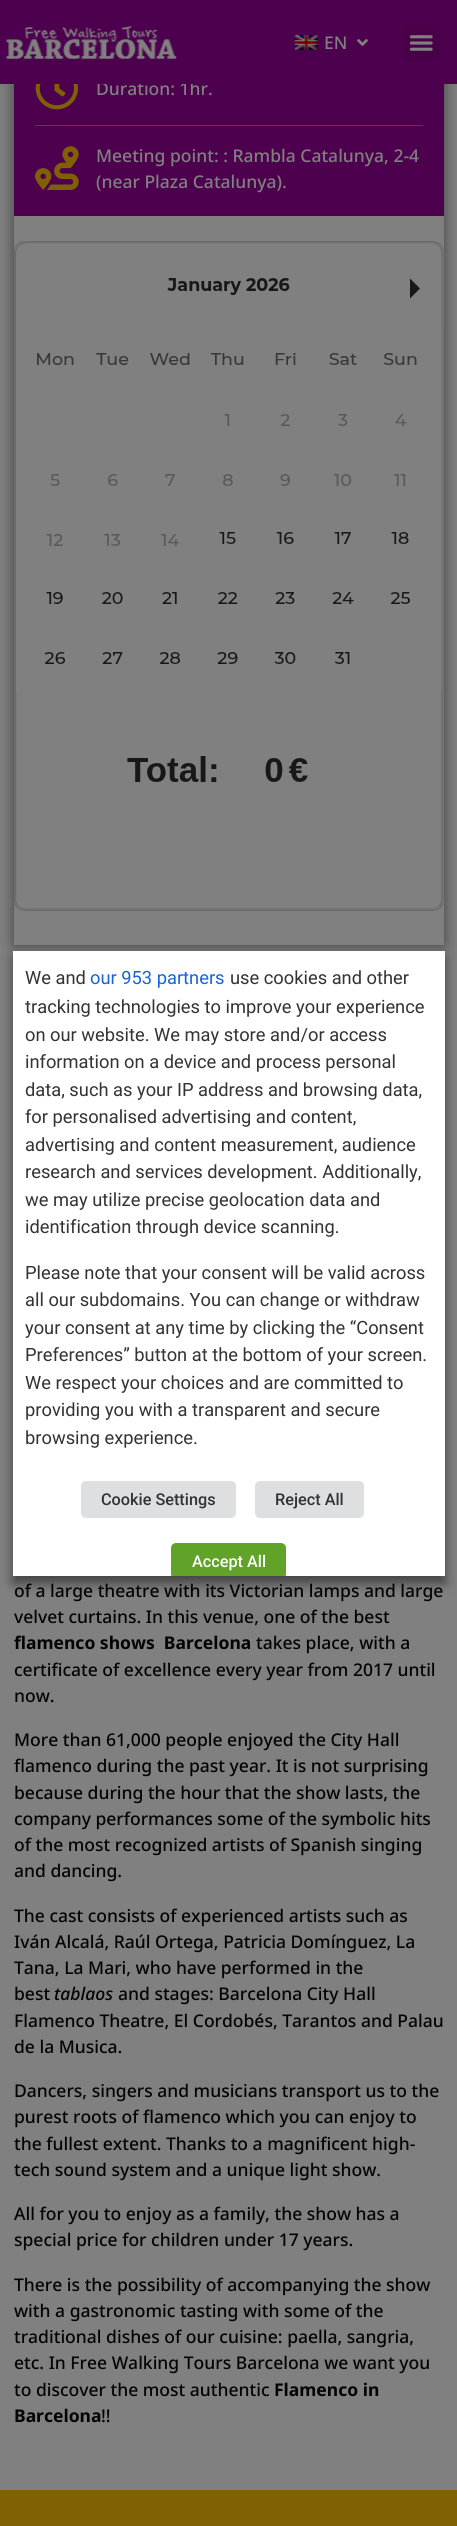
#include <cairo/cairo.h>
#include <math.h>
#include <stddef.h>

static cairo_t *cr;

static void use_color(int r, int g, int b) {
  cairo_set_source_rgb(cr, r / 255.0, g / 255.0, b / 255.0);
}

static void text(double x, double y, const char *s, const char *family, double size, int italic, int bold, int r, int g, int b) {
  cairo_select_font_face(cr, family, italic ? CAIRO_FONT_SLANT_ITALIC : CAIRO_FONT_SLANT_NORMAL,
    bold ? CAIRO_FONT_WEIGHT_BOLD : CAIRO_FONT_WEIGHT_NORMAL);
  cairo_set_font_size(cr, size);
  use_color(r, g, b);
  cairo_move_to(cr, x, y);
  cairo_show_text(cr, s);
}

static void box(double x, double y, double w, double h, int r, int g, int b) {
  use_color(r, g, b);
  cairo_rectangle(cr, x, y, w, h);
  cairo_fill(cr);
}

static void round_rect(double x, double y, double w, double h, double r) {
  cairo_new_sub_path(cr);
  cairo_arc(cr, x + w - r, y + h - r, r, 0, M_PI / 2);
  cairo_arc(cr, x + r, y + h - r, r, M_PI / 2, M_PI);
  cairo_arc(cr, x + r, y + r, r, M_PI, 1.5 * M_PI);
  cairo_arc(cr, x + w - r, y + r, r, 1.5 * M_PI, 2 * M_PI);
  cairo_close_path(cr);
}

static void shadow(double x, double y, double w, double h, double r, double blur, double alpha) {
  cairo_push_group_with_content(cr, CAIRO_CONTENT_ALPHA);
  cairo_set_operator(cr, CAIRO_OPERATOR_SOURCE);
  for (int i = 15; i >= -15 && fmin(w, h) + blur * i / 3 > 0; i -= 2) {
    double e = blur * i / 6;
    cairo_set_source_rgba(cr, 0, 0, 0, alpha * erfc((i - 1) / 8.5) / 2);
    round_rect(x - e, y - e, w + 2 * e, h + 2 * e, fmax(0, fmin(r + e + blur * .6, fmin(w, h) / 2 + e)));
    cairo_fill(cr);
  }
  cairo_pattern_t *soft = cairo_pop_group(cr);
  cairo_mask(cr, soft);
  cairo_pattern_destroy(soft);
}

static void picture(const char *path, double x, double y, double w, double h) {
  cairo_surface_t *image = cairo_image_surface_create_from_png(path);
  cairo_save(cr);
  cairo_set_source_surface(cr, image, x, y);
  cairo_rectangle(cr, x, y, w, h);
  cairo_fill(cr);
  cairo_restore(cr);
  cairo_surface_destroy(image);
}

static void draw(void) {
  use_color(128, 128, 128);
  cairo_paint(cr);
  use_color(0, 0, 0);
  shadow(14, -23, 430, 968, 0, 7.5, 0.5);
  box(14, 216, 430, 729, 128, 128, 128);
  box(14, 84, 430, 132, 77, 0, 77);
  picture("img_05.png", 35, 84, 44, 26);
  box(35, 125, 388, 1, 97, 53, 97);
  picture("img_06.png", 35, 146, 44, 44);
  picture("img_07.png", 14, 241, 430, 670);
  box(0, 2490, 457, 36, 128, 97, 4);
  use_color(0, 0, 0);
  shadow(13, 958, 432, 625, 0, 6, 0.5);
  box(13, 951, 432, 625, 255, 255, 255);
  use_color(222, 223, 224);
  round_rect(81, 1481, 155, 37, 5);
  cairo_fill(cr);
  round_rect(255, 1481, 109, 37, 5);
  cairo_fill(cr);
  cairo_save(cr);
  cairo_rectangle(cr, 13, 951, 432, 625);
  cairo_clip(cr);
  use_color(97, 162, 41);
  round_rect(171, 1543, 115, 36, 5);
  cairo_fill(cr);
  cairo_restore(cr);
  text(96, 95, "Duration: 1hr.", "Noto Sans Medium", 17.5, 0, 0, 128, 128, 128);
  box(0, 0, 457, 84, 77, 0, 77);
  use_color(73, 0, 73);
  round_rect(403, 24, 37, 37, 4);
  cairo_fill(cr);
  picture("img_04.png", 409, 35, 24, 16);
  picture("img_03.png", 357, 39, 11, 7);
  text(324, 49, "EN", "Noto Sans Medium", 17.5, 0, 0, 128, 128, 128);
  picture("img_02.png", 294, 35, 25, 15);
  picture("img_01.png", 6, 26, 171, 33);
  text(96, 162, "Meeting point: : Rambla Catalunya, 2-4", "Noto Sans Medium", 17.5, 0, 0, 128, 128, 128);
  text(96, 188, "(near Plaza Catalunya).", "Noto Sans Medium", 17.5, 0, 0, 128, 128, 128);
  text(14, 1597, "of a large theatre with its Victorian lamps and large", "Noto Sans Medium", 17.5, 0, 0, 3, 3, 3);
  text(14, 1623, "velvet curtains. In this venue, one of the best", "Noto Sans Medium", 17.5, 0, 0, 3, 3, 3);
  text(14, 1649, "flamenco shows  Barcelona", "Noto Sans", 17.5, 0, 1, 3, 3, 3);
  text(256, 1649, "takes place, with a", "Noto Sans Medium", 17.5, 0, 0, 3, 3, 3);
  text(14, 1676, "certificate of excellence every year from 2017 until", "Noto Sans Medium", 17.5, 0, 0, 3, 3, 3);
  text(14, 1702, "now.", "Noto Sans Medium", 17.5, 0, 0, 3, 3, 3);
  text(14, 1746, "More than 61,000 people enjoyed the City Hall", "Noto Sans Medium", 17.5, 0, 0, 3, 3, 3);
  text(14, 1772, "flamenco during the past year. It is not surprising", "Noto Sans Medium", 17.5, 0, 0, 3, 3, 3);
  text(14, 1799, "because during the hour that the show lasts, the", "Noto Sans Medium", 17.5, 0, 0, 3, 3, 3);
  text(14, 1825, "company performances some of the symbolic hits", "Noto Sans Medium", 17.5, 0, 0, 3, 3, 3);
  text(14, 1851, "of the most recognized artists of Spanish singing", "Noto Sans Medium", 17.5, 0, 0, 3, 3, 3);
  text(14, 1877, "and dancing.", "Noto Sans Medium", 17.5, 0, 0, 3, 3, 3);
  text(14, 1922, "The cast consists of experienced artists such as", "Noto Sans Medium", 17.5, 0, 0, 3, 3, 3);
  text(14, 1948, "Iván Alcalá, Raúl Ortega, Patricia Domínguez, La", "Noto Sans Medium", 17.5, 0, 0, 3, 3, 3);
  text(14, 1974, "Tana, La Mari, who have performed in the", "Noto Sans Medium", 17.5, 0, 0, 3, 3, 3);
  text(14, 2000, "best", "Noto Sans Medium", 17.5, 0, 0, 3, 3, 3);
  text(54, 2000, "tablaos", "Noto Sans Medium", 17.5, 1, 0, 3, 3, 3);
  text(118, 2000, "and stages: Barcelona City Hall", "Noto Sans Medium", 17.5, 0, 0, 3, 3, 3);
  text(14, 2027, "Flamenco Theatre, El Cordobés, Tarantos and Palau", "Noto Sans Medium", 17.5, 0, 0, 3, 3, 3);
  text(14, 2053, "de la Musica.", "Noto Sans Medium", 17.5, 0, 0, 3, 3, 3);
  text(14, 2097, "Dancers, singers and musicians transport us to the", "Noto Sans Medium", 17.5, 0, 0, 3, 3, 3);
  text(14, 2123, "purest roots of flamenco which you can enjoy to", "Noto Sans Medium", 17.5, 0, 0, 3, 3, 3);
  text(14, 2150, "the fullest extent. Thanks to a magnificent high-", "Noto Sans Medium", 17.5, 0, 0, 3, 3, 3);
  text(14, 2176, "tech sound system and a unique light show.", "Noto Sans Medium", 17.5, 0, 0, 3, 3, 3);
  text(14, 2220, "All for you to enjoy as a family, the show has a", "Noto Sans Medium", 17.5, 0, 0, 3, 3, 3);
  text(14, 2246, "special price for children under 17 years.", "Noto Sans Medium", 17.5, 0, 0, 3, 3, 3);
  text(14, 2291, "There is the possibility of accompanying the show", "Noto Sans Medium", 17.5, 0, 0, 3, 3, 3);
  text(14, 2317, "with a gastronomic tasting with some of the", "Noto Sans Medium", 17.5, 0, 0, 3, 3, 3);
  text(14, 2343, "traditional dishes of our cuisine: paella, sangria,", "Noto Sans Medium", 17.5, 0, 0, 3, 3, 3);
  text(14, 2369, "etc. In Free Walking Tours Barcelona we want you", "Noto Sans Medium", 17.5, 0, 0, 3, 3, 3);
  text(14, 2396, "to discover the most authentic", "Noto Sans Medium", 17.5, 0, 0, 3, 3, 3);
  text(274, 2396, "Flamenco in", "Noto Sans", 17.5, 0, 1, 3, 3, 3);
  text(14, 2422, "Barcelona", "Noto Sans", 17.5, 0, 1, 3, 3, 3);
  text(101, 2422, "!!", "Noto Sans Medium", 17.5, 0, 0, 3, 3, 3);
  text(25, 984, "We and", "Roboto", 18.3, 0, 0, 51, 51, 51);
  text(90, 984, "our 953 partners", "Roboto", 18.3, 0, 0, 24, 99, 220);
  text(230, 984, "use cookies and other", "Roboto", 18.3, 0, 0, 51, 51, 51);
  text(25, 1013, "tracking technologies to improve your experience", "Roboto", 18.3, 0, 0, 51, 51, 51);
  text(25, 1041, "on our website. We may store and/or access", "Roboto", 18.3, 0, 0, 51, 51, 51);
  text(25, 1068, "information on a device and process personal", "Roboto", 18.3, 0, 0, 51, 51, 51);
  text(25, 1096, "data, such as your IP address and browsing data,", "Roboto", 18.3, 0, 0, 51, 51, 51);
  text(25, 1123, "for personalised advertising and content,", "Roboto", 18.3, 0, 0, 51, 51, 51);
  text(25, 1151, "advertising and content measurement, audience", "Roboto", 18.3, 0, 0, 51, 51, 51);
  text(25, 1178, "research and services development. Additionally,", "Roboto", 18.3, 0, 0, 51, 51, 51);
  text(25, 1206, "we may utilize precise geolocation data and", "Roboto", 18.3, 0, 0, 51, 51, 51);
  text(25, 1233, "identification through device scanning.", "Roboto", 18.3, 0, 0, 51, 51, 51);
  text(25, 1279, "Please note that your consent will be valid across", "Roboto", 18.3, 0, 0, 51, 51, 51);
  text(25, 1306, "all our subdomains. You can change or withdraw", "Roboto", 18.3, 0, 0, 51, 51, 51);
  text(25, 1334, "your consent at any time by clicking the “Consent", "Roboto", 18.3, 0, 0, 51, 51, 51);
  text(25, 1361, "Preferences” button at the bottom of your screen.", "Roboto", 18.3, 0, 0, 51, 51, 51);
  text(25, 1389, "We respect your choices and are committed to", "Roboto", 18.3, 0, 0, 51, 51, 51);
  text(25, 1416, "providing you with a transparent and secure", "Roboto", 18.3, 0, 0, 51, 51, 51);
  text(25, 1444, "browsing experience.", "Roboto", 18.3, 0, 0, 51, 51, 51);
  text(101, 1505, "Cookie Settings", "Roboto Medium", 16.25, 0, 0, 51, 51, 51);
  text(275, 1505, "Reject All", "Roboto Medium", 16.25, 0, 0, 51, 51, 51);
  text(192, 1567, "Accept All", "Roboto Medium", 16.25, 0, 0, 255, 255, 255);
}

int main(void) {
  cairo_surface_t *surface = cairo_image_surface_create(CAIRO_FORMAT_RGB24, 457, 2526);
  cr = cairo_create(surface);
  cairo_font_options_t *options = cairo_font_options_create();
  cairo_font_options_set_hint_metrics(options, CAIRO_HINT_METRICS_OFF);
  cairo_font_options_set_hint_style(options, CAIRO_HINT_STYLE_NONE);
  cairo_set_font_options(cr, options);
  cairo_set_miter_limit(cr, 4);
  draw();
  cairo_surface_write_to_png(surface, "out.png");
  cairo_font_options_destroy(options);
  cairo_destroy(cr);
  cairo_surface_destroy(surface);
  return 0;
}
